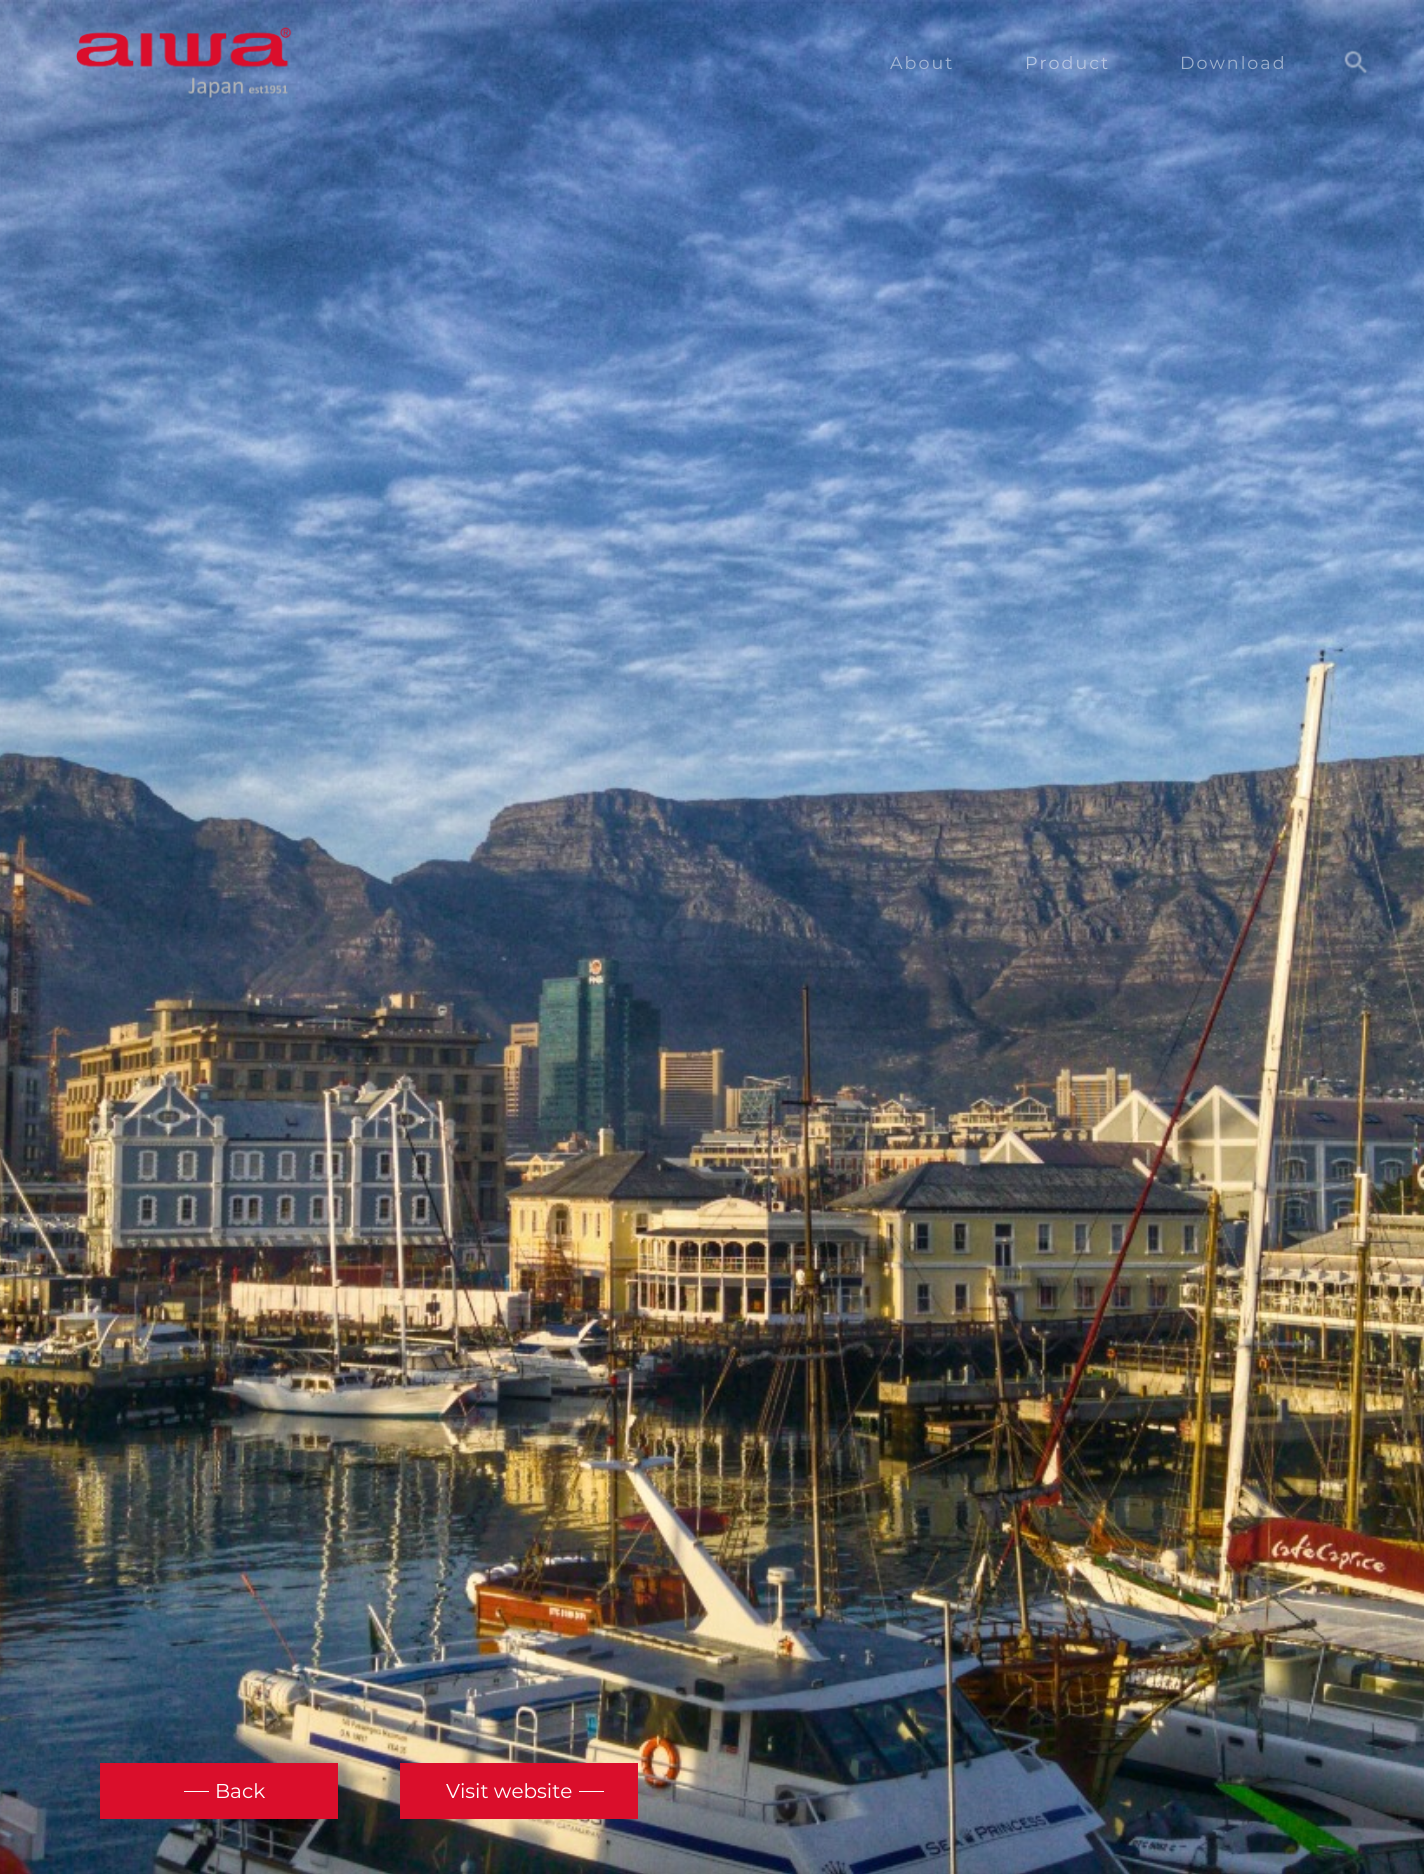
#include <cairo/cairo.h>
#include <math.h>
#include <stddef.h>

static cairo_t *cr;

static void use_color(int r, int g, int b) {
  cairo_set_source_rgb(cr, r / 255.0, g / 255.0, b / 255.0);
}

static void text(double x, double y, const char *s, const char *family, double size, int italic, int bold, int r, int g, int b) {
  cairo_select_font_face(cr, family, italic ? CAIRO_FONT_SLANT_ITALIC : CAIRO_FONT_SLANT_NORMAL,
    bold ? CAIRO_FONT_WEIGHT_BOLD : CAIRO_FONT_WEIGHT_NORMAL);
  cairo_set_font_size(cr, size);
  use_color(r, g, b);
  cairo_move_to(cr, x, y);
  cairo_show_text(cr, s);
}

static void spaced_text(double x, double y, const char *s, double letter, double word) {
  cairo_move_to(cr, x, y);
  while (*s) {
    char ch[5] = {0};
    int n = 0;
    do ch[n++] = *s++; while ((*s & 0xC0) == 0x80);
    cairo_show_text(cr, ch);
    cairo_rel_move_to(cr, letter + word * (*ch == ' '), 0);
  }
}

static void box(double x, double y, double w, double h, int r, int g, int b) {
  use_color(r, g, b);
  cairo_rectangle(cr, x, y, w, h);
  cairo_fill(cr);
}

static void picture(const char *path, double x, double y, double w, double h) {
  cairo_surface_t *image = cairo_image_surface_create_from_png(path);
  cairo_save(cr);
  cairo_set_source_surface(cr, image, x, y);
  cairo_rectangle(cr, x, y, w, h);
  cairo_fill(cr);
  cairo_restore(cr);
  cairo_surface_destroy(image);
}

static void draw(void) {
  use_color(255, 255, 255);
  cairo_paint(cr);
  picture("img_03.png", 0, 0, 1424, 1874);
  picture("img_01.png", 76, 27, 216, 72);
  picture("img_02.png", 1344, 50, 24, 24);
  box(100, 1763, 238, 56, 218, 14, 43);
  box(184, 1791, 25, 1, 255, 255, 255);
  box(400, 1763, 238, 56, 218, 14, 43);
  box(579, 1791, 25, 1, 255, 255, 255);
  cairo_select_font_face(cr, "Montserrat", CAIRO_FONT_SLANT_NORMAL, CAIRO_FONT_WEIGHT_NORMAL);
  cairo_set_font_size(cr, 17.5);
  use_color(165, 184, 214);
  spaced_text(890, 69, "About", 2, 0);
  use_color(183, 198, 225);
  spaced_text(1025, 69, "Product", 2, 0);
  use_color(158, 177, 205);
  spaced_text(1180, 69, "Download", 2, 0);
  text(215, 1798, "Back", "Montserrat", 20, 0, 0, 255, 255, 255);
  text(446, 1798, "Visit website", "Montserrat", 20, 0, 0, 255, 255, 255);
}

int main(void) {
  cairo_surface_t *surface = cairo_image_surface_create(CAIRO_FORMAT_RGB24, 1424, 1874);
  cr = cairo_create(surface);
  cairo_font_options_t *options = cairo_font_options_create();
  cairo_font_options_set_hint_metrics(options, CAIRO_HINT_METRICS_OFF);
  cairo_font_options_set_hint_style(options, CAIRO_HINT_STYLE_NONE);
  cairo_set_font_options(cr, options);
  cairo_set_miter_limit(cr, 4);
  draw();
  cairo_surface_write_to_png(surface, "out.png");
  cairo_font_options_destroy(options);
  cairo_destroy(cr);
  cairo_surface_destroy(surface);
  return 0;
}
